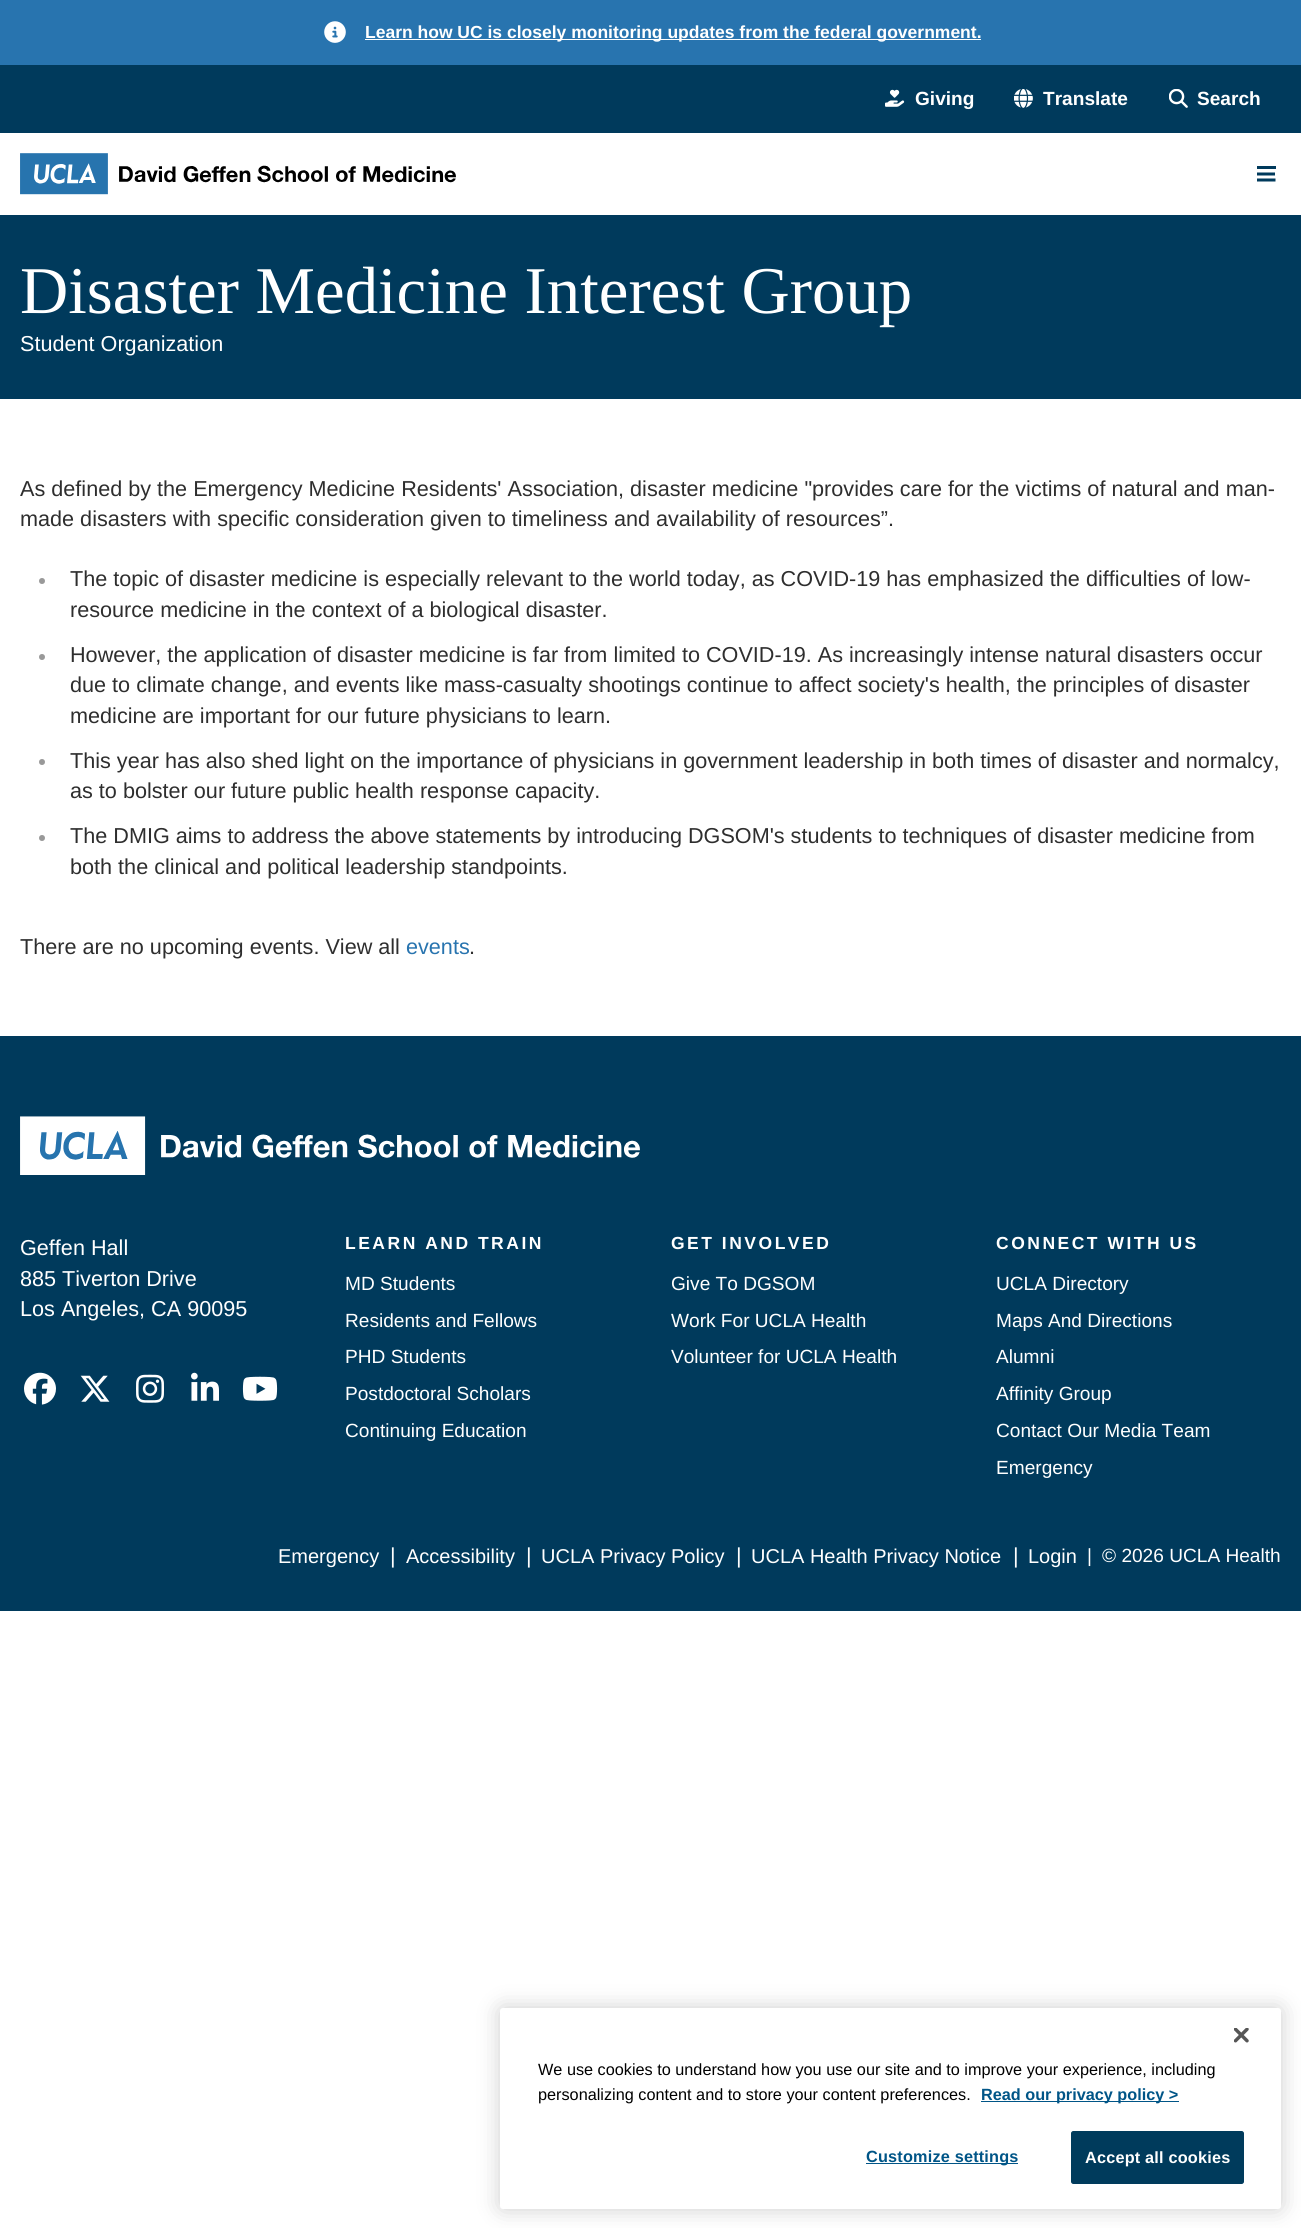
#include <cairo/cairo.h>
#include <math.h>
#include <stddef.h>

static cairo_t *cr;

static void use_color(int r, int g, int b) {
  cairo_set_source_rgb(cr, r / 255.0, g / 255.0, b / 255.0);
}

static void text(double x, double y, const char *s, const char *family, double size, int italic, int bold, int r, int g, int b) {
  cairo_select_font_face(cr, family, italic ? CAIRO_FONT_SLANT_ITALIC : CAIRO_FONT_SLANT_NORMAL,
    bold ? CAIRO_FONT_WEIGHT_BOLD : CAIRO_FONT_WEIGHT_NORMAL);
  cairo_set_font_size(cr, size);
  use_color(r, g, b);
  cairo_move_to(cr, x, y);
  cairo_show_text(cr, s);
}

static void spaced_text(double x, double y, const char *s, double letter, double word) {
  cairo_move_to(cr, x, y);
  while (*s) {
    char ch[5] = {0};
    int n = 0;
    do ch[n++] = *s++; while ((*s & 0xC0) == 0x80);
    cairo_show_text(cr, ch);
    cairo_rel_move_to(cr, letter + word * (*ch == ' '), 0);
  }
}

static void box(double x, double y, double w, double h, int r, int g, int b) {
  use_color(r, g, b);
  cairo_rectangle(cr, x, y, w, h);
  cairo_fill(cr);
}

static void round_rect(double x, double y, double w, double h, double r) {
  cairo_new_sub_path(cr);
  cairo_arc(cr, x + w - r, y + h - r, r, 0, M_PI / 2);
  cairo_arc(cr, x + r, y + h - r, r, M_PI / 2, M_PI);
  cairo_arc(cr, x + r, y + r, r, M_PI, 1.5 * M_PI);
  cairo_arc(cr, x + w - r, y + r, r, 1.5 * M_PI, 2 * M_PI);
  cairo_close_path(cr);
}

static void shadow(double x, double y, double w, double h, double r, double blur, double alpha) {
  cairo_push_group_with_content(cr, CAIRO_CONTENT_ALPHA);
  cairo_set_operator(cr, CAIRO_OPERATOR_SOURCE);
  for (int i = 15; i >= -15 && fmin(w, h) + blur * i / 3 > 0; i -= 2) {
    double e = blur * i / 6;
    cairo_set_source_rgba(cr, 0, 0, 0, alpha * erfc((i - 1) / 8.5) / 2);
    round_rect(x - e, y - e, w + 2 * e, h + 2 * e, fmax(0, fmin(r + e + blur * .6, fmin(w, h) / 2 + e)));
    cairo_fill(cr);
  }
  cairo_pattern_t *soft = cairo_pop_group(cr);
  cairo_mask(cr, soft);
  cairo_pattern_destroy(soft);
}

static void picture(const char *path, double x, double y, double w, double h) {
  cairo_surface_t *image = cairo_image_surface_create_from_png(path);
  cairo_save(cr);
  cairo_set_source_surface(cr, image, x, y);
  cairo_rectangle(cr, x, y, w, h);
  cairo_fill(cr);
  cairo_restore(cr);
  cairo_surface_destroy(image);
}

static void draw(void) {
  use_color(255, 255, 255);
  cairo_paint(cr);
  box(0, 0, 1301, 65, 40, 116, 175);
  picture("img_01.png", 324, 21, 22, 22);
  box(365, 39, 616, 1, 255, 255, 255);
  box(0, 65, 1301, 68, 0, 58, 92);
  picture("img_02.png", 885, 89, 20, 18);
  picture("img_03.png", 1014, 89, 19, 19);
  picture("img_04.png", 1169, 89, 19, 19);
  picture("img_05.png", 20, 153, 436, 42);
  box(1257, 166, 19, 3, 0, 58, 92);
  cairo_new_path(cr);
  cairo_move_to(cr, 1257, 174);
  cairo_line_to(cr, 1275, 174);
  cairo_move_to(cr, 1257, 180);
  cairo_line_to(cr, 1275.5, 180);
  cairo_set_line_width(cr, 3);
  cairo_stroke(cr);
  box(0, 215, 1301, 184, 0, 58, 92);
  use_color(153, 153, 153);
  cairo_arc(cr, 42, 581, 3, 0, 2 * M_PI);
  cairo_fill(cr);
  cairo_arc(cr, 42, 657, 3, 0, 2 * M_PI);
  cairo_fill(cr);
  cairo_arc(cr, 42, 762, 3, 0, 2 * M_PI);
  cairo_fill(cr);
  cairo_arc(cr, 42, 838, 3, 0, 2 * M_PI);
  cairo_fill(cr);
  box(0, 1036, 1301, 575, 0, 58, 92);
  picture("img_06.png", 20, 1116, 620, 59);
  picture("img_07.png", 24, 1372, 32, 33);
  picture("img_08.png", 80, 1375, 30, 27);
  picture("img_09.png", 136, 1374, 28, 29);
  picture("img_10.png", 191, 1372, 28, 29);
  picture("img_11.png", 242, 1376, 36, 25);
  use_color(0, 0, 0);
  shadow(500, 2008, 781, 201, 3, 11, 0.2);
  use_color(255, 255, 255);
  round_rect(500, 2008, 781, 201, 3);
  cairo_fill(cr);
  picture("img_12.png", 1234, 2028, 15, 15);
  box(981, 2101, 198, 1, 0, 85, 135);
  box(866, 2163, 152, 1, 0, 85, 135);
  use_color(0, 59, 92);
  round_rect(1071.5, 2131.5, 172, 52, 2);
  cairo_fill_preserve(cr);
  cairo_set_line_width(cr, 1);
  cairo_stroke(cr);
  text(365, 38, "Learn how UC is closely monitoring updates from the federal government.", "Liberation Sans", 17.5, 0, 1, 255, 255, 255);
  text(915, 105, "Giving", "Liberation Sans", 19.1, 0, 1, 255, 255, 255);
  text(1043, 105, "Translate", "Liberation Sans", 19.1, 0, 1, 255, 255, 255);
  text(1197, 105, "Search", "Liberation Sans", 19.1, 0, 1, 255, 255, 255);
  text(20, 313, "Disaster Medicine Interest Group", "Liberation Serif", 66.8, 0, 0, 255, 255, 255);
  text(20, 351, "Student Organization", "Liberation Sans", 21.63, 0, 0, 255, 255, 255);
  text(20, 496, "As defined by the Emergency Medicine Residents' Association, disaster medicine \"provides care for the victims of natural and man-", "Liberation Sans", 21.63, 0, 0, 46, 46, 46);
  text(20, 526, "made disasters with specific consideration given to timeliness and availability of resources”.", "Liberation Sans", 21.63, 0, 0, 46, 46, 46);
  text(70, 586, "The topic of disaster medicine is especially relevant to the world today, as COVID-19 has emphasized the difficulties of low-", "Liberation Sans", 21.63, 0, 0, 46, 46, 46);
  text(70, 617, "resource medicine in the context of a biological disaster.", "Liberation Sans", 21.63, 0, 0, 46, 46, 46);
  text(70, 662, "However, the application of disaster medicine is far from limited to COVID-19. As increasingly intense natural disasters occur", "Liberation Sans", 21.63, 0, 0, 46, 46, 46);
  text(70, 692, "due to climate change, and events like mass-casualty shootings continue to affect society's health, the principles of disaster", "Liberation Sans", 21.63, 0, 0, 46, 46, 46);
  text(70, 723, "medicine are important for our future physicians to learn.", "Liberation Sans", 21.63, 0, 0, 46, 46, 46);
  text(70, 768, "This year has also shed light on the importance of physicians in government leadership in both times of disaster and normalcy,", "Liberation Sans", 21.63, 0, 0, 46, 46, 46);
  text(70, 798, "as to bolster our future public health response capacity.", "Liberation Sans", 21.63, 0, 0, 46, 46, 46);
  text(70, 843, "The DMIG aims to address the above statements by introducing DGSOM's students to techniques of disaster medicine from", "Liberation Sans", 21.63, 0, 0, 46, 46, 46);
  text(70, 874, "both the clinical and political leadership standpoints.", "Liberation Sans", 21.63, 0, 0, 46, 46, 46);
  text(20, 954, "There are no upcoming events. View all", "Liberation Sans", 21.63, 0, 0, 46, 46, 46);
  text(406, 954, "events", "Liberation Sans", 21.63, 0, 0, 40, 116, 175);
  text(469, 954, ".", "Liberation Sans", 21.63, 0, 0, 46, 46, 46);
  text(20, 1255, "Geffen Hall", "Liberation Sans", 21.63, 0, 0, 255, 255, 255);
  text(20, 1286, "885 Tiverton Drive", "Liberation Sans", 21.63, 0, 0, 255, 255, 255);
  text(20, 1316, "Los Angeles, CA 90095", "Liberation Sans", 21.63, 0, 0, 255, 255, 255);
  cairo_select_font_face(cr, "Liberation Sans", CAIRO_FONT_SLANT_NORMAL, CAIRO_FONT_WEIGHT_BOLD);
  cairo_set_font_size(cr, 17.5);
  spaced_text(345, 1249, "LEARN AND TRAIN", 2.5, 0);
  text(345, 1290, "MD Students", "Liberation Sans", 19.1, 0, 0, 255, 255, 255);
  text(345, 1327, "Residents and Fellows", "Liberation Sans", 19.1, 0, 0, 255, 255, 255);
  text(345, 1363, "PHD Students", "Liberation Sans", 19.1, 0, 0, 255, 255, 255);
  text(345, 1400, "Postdoctoral Scholars", "Liberation Sans", 19.1, 0, 0, 255, 255, 255);
  text(345, 1437, "Continuing Education", "Liberation Sans", 19.1, 0, 0, 255, 255, 255);
  cairo_select_font_face(cr, "Liberation Sans", CAIRO_FONT_SLANT_NORMAL, CAIRO_FONT_WEIGHT_BOLD);
  cairo_set_font_size(cr, 17.5);
  spaced_text(671, 1249, "GET INVOLVED", 2.5, 0);
  text(671, 1290, "Give To DGSOM", "Liberation Sans", 19.1, 0, 0, 255, 255, 255);
  text(671, 1327, "Work For UCLA Health", "Liberation Sans", 19.1, 0, 0, 255, 255, 255);
  text(671, 1363, "Volunteer for UCLA Health", "Liberation Sans", 19.1, 0, 0, 255, 255, 255);
  cairo_select_font_face(cr, "Liberation Sans", CAIRO_FONT_SLANT_NORMAL, CAIRO_FONT_WEIGHT_BOLD);
  cairo_set_font_size(cr, 17.5);
  spaced_text(996, 1249, "CONNECT WITH US", 2.5, 0);
  text(996, 1290, "UCLA Directory", "Liberation Sans", 19.1, 0, 0, 255, 255, 255);
  text(996, 1327, "Maps And Directions", "Liberation Sans", 19.1, 0, 0, 255, 255, 255);
  text(996, 1363, "Alumni", "Liberation Sans", 19.1, 0, 0, 255, 255, 255);
  text(996, 1400, "Affinity Group", "Liberation Sans", 19.1, 0, 0, 255, 255, 255);
  text(996, 1437, "Contact Our Media Team", "Liberation Sans", 19.1, 0, 0, 255, 255, 255);
  text(996, 1474, "Emergency", "Liberation Sans", 19.1, 0, 0, 255, 255, 255);
  text(278, 1563, "Emergency", "Liberation Sans", 20, 0, 0, 255, 255, 255);
  text(390, 1563, "|", "Liberation Sans", 21.63, 0, 0, 255, 255, 255);
  text(406, 1563, "Accessibility", "Liberation Sans", 20, 0, 0, 255, 255, 255);
  text(526, 1563, "|", "Liberation Sans", 21.63, 0, 0, 255, 255, 255);
  text(541, 1563, "UCLA Privacy Policy", "Liberation Sans", 20, 0, 0, 255, 255, 255);
  text(736, 1563, "|", "Liberation Sans", 21.63, 0, 0, 255, 255, 255);
  text(751, 1563, "UCLA Health Privacy Notice", "Liberation Sans", 20, 0, 0, 255, 255, 255);
  text(1013, 1563, "|", "Liberation Sans", 21.63, 0, 0, 255, 255, 255);
  text(1028, 1563, "Login", "Liberation Sans", 20, 0, 0, 255, 255, 255);
  text(1087, 1562, "|", "Liberation Sans", 19.1, 0, 0, 255, 255, 255);
  text(1102, 1562, "© 2026 UCLA Health", "Liberation Sans", 19.1, 0, 0, 255, 255, 255);
  text(538, 2075, "We use cookies to understand how you use our site and to improve your experience, including", "Liberation Sans", 16.25, 0, 0, 0, 0, 0);
  text(538, 2100, "personalizing content and to store your content preferences.", "Liberation Sans", 16.25, 0, 0, 0, 0, 0);
  text(981, 2100, "Read our privacy policy >", "Liberation Sans", 16.25, 0, 1, 0, 85, 135);
  spaced_text(866, 2162, "Customize settings", 0.2, 0);
  use_color(255, 255, 255);
  spaced_text(1085, 2163, "Accept all cookies", 0.2, 0);
}

int main(void) {
  cairo_surface_t *surface = cairo_image_surface_create(CAIRO_FORMAT_RGB24, 1301, 2228);
  cr = cairo_create(surface);
  cairo_font_options_t *options = cairo_font_options_create();
  cairo_font_options_set_hint_metrics(options, CAIRO_HINT_METRICS_OFF);
  cairo_font_options_set_hint_style(options, CAIRO_HINT_STYLE_NONE);
  cairo_set_font_options(cr, options);
  cairo_set_miter_limit(cr, 4);
  draw();
  cairo_surface_write_to_png(surface, "out.png");
  cairo_font_options_destroy(options);
  cairo_destroy(cr);
  cairo_surface_destroy(surface);
  return 0;
}
